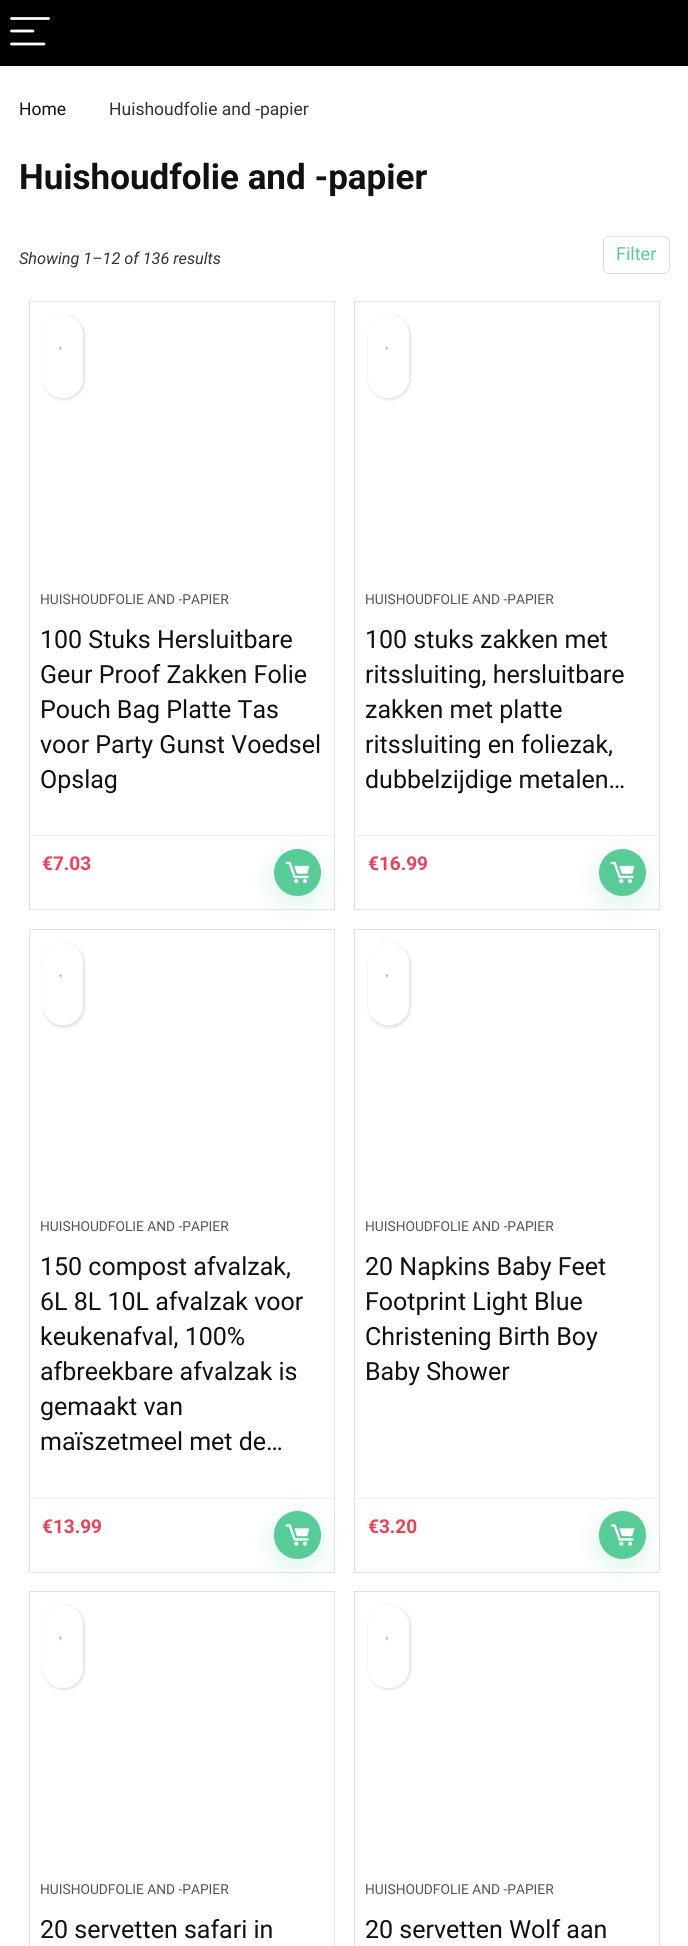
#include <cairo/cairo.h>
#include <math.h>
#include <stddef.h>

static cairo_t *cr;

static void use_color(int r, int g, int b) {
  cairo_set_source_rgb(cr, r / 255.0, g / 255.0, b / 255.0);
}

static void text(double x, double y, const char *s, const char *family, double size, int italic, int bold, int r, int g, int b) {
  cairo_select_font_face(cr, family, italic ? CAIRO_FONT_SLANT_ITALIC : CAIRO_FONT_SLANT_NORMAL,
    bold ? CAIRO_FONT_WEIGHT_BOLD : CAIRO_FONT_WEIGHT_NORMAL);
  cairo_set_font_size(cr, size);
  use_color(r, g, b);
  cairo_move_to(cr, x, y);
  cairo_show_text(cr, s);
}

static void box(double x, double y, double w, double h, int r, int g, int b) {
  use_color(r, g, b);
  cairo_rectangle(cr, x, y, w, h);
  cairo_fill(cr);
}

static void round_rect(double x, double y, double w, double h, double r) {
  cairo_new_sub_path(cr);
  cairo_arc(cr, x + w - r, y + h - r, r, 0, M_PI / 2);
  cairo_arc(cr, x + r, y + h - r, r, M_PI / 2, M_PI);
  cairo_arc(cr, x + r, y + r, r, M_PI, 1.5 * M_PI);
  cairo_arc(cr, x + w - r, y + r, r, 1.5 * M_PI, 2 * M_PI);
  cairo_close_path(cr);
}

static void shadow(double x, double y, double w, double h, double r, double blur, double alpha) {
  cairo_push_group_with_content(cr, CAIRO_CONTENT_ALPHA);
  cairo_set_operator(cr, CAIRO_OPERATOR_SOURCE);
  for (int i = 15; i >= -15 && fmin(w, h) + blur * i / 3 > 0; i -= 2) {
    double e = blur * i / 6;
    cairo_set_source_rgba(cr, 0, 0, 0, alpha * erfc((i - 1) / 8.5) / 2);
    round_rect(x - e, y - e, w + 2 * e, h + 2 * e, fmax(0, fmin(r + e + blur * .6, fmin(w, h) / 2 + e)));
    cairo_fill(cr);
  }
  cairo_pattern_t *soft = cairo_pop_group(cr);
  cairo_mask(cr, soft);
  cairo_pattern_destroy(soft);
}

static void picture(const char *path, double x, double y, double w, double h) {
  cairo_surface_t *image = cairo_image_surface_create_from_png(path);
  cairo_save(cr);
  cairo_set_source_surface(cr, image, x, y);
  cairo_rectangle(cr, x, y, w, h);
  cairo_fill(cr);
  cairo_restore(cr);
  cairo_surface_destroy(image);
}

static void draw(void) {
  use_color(255, 255, 255);
  cairo_paint(cr);
  box(0, 0, 688, 66, 0, 0, 0);
  cairo_new_path(cr);
  cairo_move_to(cr, 11.5, 18.5);
  cairo_line_to(cr, 48.5, 18.5);
  cairo_move_to(cr, 11.5, 31);
  cairo_line_to(cr, 33, 31);
  cairo_move_to(cr, 11.5, 44);
  cairo_line_to(cr, 44, 44);
  use_color(255, 255, 255);
  cairo_set_line_width(cr, 2.8);
  cairo_set_line_cap(cr, CAIRO_LINE_CAP_ROUND);
  cairo_stroke(cr);
  round_rect(603.5, 236.5, 66, 37, 5.5);
  use_color(220, 224, 224);
  cairo_set_line_width(cr, 1);
  cairo_set_line_cap(cr, CAIRO_LINE_CAP_BUTT);
  cairo_stroke(cr);
  cairo_rectangle(cr, 29.5, 301.5, 305, 608);
  use_color(226, 226, 226);
  cairo_stroke(cr);
  cairo_save(cr);
  cairo_set_fill_rule(cr, CAIRO_FILL_RULE_EVEN_ODD);
  cairo_new_path(cr);
  cairo_move_to(cr, 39, 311);
  cairo_line_to(cr, 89, 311);
  cairo_line_to(cr, 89, 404);
  cairo_line_to(cr, 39, 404);
  cairo_close_path(cr);
  cairo_move_to(cr, 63, 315);
  cairo_curve_to(cr, 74, 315, 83, 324, 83, 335);
  cairo_line_to(cr, 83, 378);
  cairo_curve_to(cr, 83, 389, 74, 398, 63, 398);
  cairo_curve_to(cr, 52, 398, 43, 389, 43, 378);
  cairo_line_to(cr, 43, 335);
  cairo_curve_to(cr, 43, 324, 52, 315, 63, 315);
  cairo_close_path(cr);
  cairo_clip(cr);
  use_color(0, 0, 0);
  shadow(43, 315, 42, 85, 21, 1, 0.1);
  cairo_restore(cr);
  cairo_set_source_rgba(cr, 1, 1, 1, 0.78);
  round_rect(43, 315, 40, 83, 20);
  cairo_fill(cr);
  picture("img_01.png", 59, 347, 3, 4);
  box(30, 835, 304, 1, 240, 240, 240);
  use_color(87, 204, 153);
  shadow(273, 856, 47, 48, 23.5, 12, 0.2);
  use_color(87, 204, 153);
  cairo_arc(cr, 297.5, 872.5, 23.5, 0, 2 * M_PI);
  cairo_fill(cr);
  picture("img_02.png", 285, 861, 25, 23);
  cairo_rectangle(cr, 354.5, 301.5, 305, 608);
  use_color(226, 226, 226);
  cairo_stroke(cr);
  cairo_save(cr);
  cairo_set_fill_rule(cr, CAIRO_FILL_RULE_EVEN_ODD);
  cairo_new_path(cr);
  cairo_move_to(cr, 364, 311);
  cairo_line_to(cr, 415, 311);
  cairo_line_to(cr, 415, 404);
  cairo_line_to(cr, 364, 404);
  cairo_close_path(cr);
  cairo_move_to(cr, 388.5, 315);
  cairo_curve_to(cr, 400, 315, 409, 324, 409, 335.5);
  cairo_line_to(cr, 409, 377.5);
  cairo_curve_to(cr, 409, 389, 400, 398, 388.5, 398);
  cairo_curve_to(cr, 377, 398, 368, 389, 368, 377.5);
  cairo_line_to(cr, 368, 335.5);
  cairo_curve_to(cr, 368, 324, 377, 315, 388.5, 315);
  cairo_close_path(cr);
  cairo_clip(cr);
  use_color(0, 0, 0);
  shadow(368, 315, 43, 85, 21.5, 1, 0.1);
  cairo_restore(cr);
  cairo_set_source_rgba(cr, 1, 1, 1, 0.78);
  round_rect(368, 315, 41, 83, 20.5);
  cairo_fill(cr);
  picture("img_03.png", 385, 347, 3, 4);
  box(355, 835, 304, 1, 240, 240, 240);
  use_color(87, 204, 153);
  shadow(598, 856, 47, 48, 23.5, 12, 0.2);
  use_color(87, 204, 153);
  cairo_arc(cr, 622.5, 872.5, 23.5, 0, 2 * M_PI);
  cairo_fill(cr);
  picture("img_02.png", 610, 861, 25, 23);
  cairo_rectangle(cr, 29.5, 929.5, 305, 643);
  use_color(226, 226, 226);
  cairo_stroke(cr);
  cairo_save(cr);
  cairo_set_fill_rule(cr, CAIRO_FILL_RULE_EVEN_ODD);
  cairo_new_path(cr);
  cairo_move_to(cr, 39, 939);
  cairo_line_to(cr, 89, 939);
  cairo_line_to(cr, 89, 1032);
  cairo_line_to(cr, 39, 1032);
  cairo_close_path(cr);
  cairo_move_to(cr, 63, 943);
  cairo_curve_to(cr, 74, 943, 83, 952, 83, 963);
  cairo_line_to(cr, 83, 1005);
  cairo_curve_to(cr, 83, 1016, 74, 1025, 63, 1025);
  cairo_curve_to(cr, 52, 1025, 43, 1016, 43, 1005);
  cairo_line_to(cr, 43, 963);
  cairo_curve_to(cr, 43, 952, 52, 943, 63, 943);
  cairo_close_path(cr);
  cairo_clip(cr);
  use_color(0, 0, 0);
  shadow(43, 943, 42, 85, 21, 1, 0.1);
  cairo_restore(cr);
  cairo_set_source_rgba(cr, 1, 1, 1, 0.78);
  round_rect(43, 943, 40, 82, 20);
  cairo_fill(cr);
  picture("img_04.png", 59, 974, 3, 4);
  box(30, 1498, 304, 1, 240, 240, 240);
  use_color(87, 204, 153);
  shadow(273, 1519, 47, 47, 23.5, 12, 0.2);
  use_color(87, 204, 153);
  round_rect(274, 1511, 47, 48, 23.5);
  cairo_fill(cr);
  picture("img_05.png", 285, 1524, 25, 22);
  cairo_rectangle(cr, 354.5, 929.5, 305, 643);
  use_color(226, 226, 226);
  cairo_stroke(cr);
  cairo_save(cr);
  cairo_set_fill_rule(cr, CAIRO_FILL_RULE_EVEN_ODD);
  cairo_new_path(cr);
  cairo_move_to(cr, 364, 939);
  cairo_line_to(cr, 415, 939);
  cairo_line_to(cr, 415, 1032);
  cairo_line_to(cr, 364, 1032);
  cairo_close_path(cr);
  cairo_move_to(cr, 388.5, 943);
  cairo_curve_to(cr, 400, 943, 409, 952, 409, 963.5);
  cairo_line_to(cr, 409, 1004.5);
  cairo_curve_to(cr, 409, 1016, 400, 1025, 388.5, 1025);
  cairo_curve_to(cr, 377, 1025, 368, 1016, 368, 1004.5);
  cairo_line_to(cr, 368, 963.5);
  cairo_curve_to(cr, 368, 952, 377, 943, 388.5, 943);
  cairo_close_path(cr);
  cairo_clip(cr);
  use_color(0, 0, 0);
  shadow(368, 943, 43, 85, 21.5, 1, 0.1);
  cairo_restore(cr);
  cairo_set_source_rgba(cr, 1, 1, 1, 0.78);
  round_rect(368, 943, 41, 82, 20.5);
  cairo_fill(cr);
  picture("img_06.png", 385, 974, 3, 4);
  box(355, 1498, 304, 1, 240, 240, 240);
  use_color(87, 204, 153);
  shadow(598, 1519, 47, 47, 23.5, 12, 0.2);
  use_color(87, 204, 153);
  round_rect(599, 1511, 47, 48, 23.5);
  cairo_fill(cr);
  picture("img_05.png", 610, 1524, 25, 22);
  cairo_rectangle(cr, 29.5, 1591.5, 305, 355);
  use_color(226, 226, 226);
  cairo_stroke(cr);
  cairo_save(cr);
  cairo_set_fill_rule(cr, CAIRO_FILL_RULE_EVEN_ODD);
  cairo_new_path(cr);
  cairo_move_to(cr, 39, 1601);
  cairo_line_to(cr, 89, 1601);
  cairo_line_to(cr, 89, 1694);
  cairo_line_to(cr, 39, 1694);
  cairo_close_path(cr);
  cairo_move_to(cr, 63, 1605);
  cairo_curve_to(cr, 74, 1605, 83, 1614, 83, 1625);
  cairo_line_to(cr, 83, 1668);
  cairo_curve_to(cr, 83, 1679, 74, 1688, 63, 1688);
  cairo_curve_to(cr, 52, 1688, 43, 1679, 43, 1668);
  cairo_line_to(cr, 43, 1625);
  cairo_curve_to(cr, 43, 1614, 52, 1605, 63, 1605);
  cairo_close_path(cr);
  cairo_clip(cr);
  use_color(0, 0, 0);
  shadow(43, 1605, 42, 85, 21, 1, 0.1);
  cairo_restore(cr);
  cairo_set_source_rgba(cr, 1, 1, 1, 0.78);
  round_rect(43, 1605, 40, 83, 20);
  cairo_fill(cr);
  picture("img_01.png", 59, 1637, 3, 4);
  cairo_rectangle(cr, 354.5, 1591.5, 305, 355);
  use_color(226, 226, 226);
  cairo_stroke(cr);
  cairo_save(cr);
  cairo_set_fill_rule(cr, CAIRO_FILL_RULE_EVEN_ODD);
  cairo_new_path(cr);
  cairo_move_to(cr, 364, 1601);
  cairo_line_to(cr, 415, 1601);
  cairo_line_to(cr, 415, 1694);
  cairo_line_to(cr, 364, 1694);
  cairo_close_path(cr);
  cairo_move_to(cr, 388.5, 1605);
  cairo_curve_to(cr, 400, 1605, 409, 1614, 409, 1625.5);
  cairo_line_to(cr, 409, 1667.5);
  cairo_curve_to(cr, 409, 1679, 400, 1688, 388.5, 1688);
  cairo_curve_to(cr, 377, 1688, 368, 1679, 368, 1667.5);
  cairo_line_to(cr, 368, 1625.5);
  cairo_curve_to(cr, 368, 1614, 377, 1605, 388.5, 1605);
  cairo_close_path(cr);
  cairo_clip(cr);
  use_color(0, 0, 0);
  shadow(368, 1605, 43, 85, 21.5, 1, 0.1);
  cairo_restore(cr);
  cairo_set_source_rgba(cr, 1, 1, 1, 0.78);
  round_rect(368, 1605, 41, 83, 20.5);
  cairo_fill(cr);
  picture("img_03.png", 385, 1637, 3, 4);
  text(19, 115, "Home", "Roboto", 17.5, 0, 0, 17, 17, 17);
  text(109, 115, "Huishoudfolie and -papier", "Roboto", 17.5, 0, 0, 51, 51, 51);
  text(19, 189, "Huishoudfolie and -papier", "Roboto", 35, 0, 1, 17, 17, 17);
  text(19, 264, "Showing 1–12 of 136 results", "Roboto", 16.25, 1, 0, 51, 51, 51);
  text(616, 260, "Filter", "Roboto", 18, 0, 0, 87, 204, 153);
  text(40, 604, "HUISHOUDFOLIE AND -PAPIER", "Roboto", 13.75, 0, 0, 85, 85, 85);
  text(40, 648, "100 Stuks Hersluitbare", "Roboto", 25, 0, 0, 17, 17, 17);
  text(40, 683, "Geur Proof Zakken Folie", "Roboto", 25, 0, 0, 17, 17, 17);
  text(40, 718, "Pouch Bag Platte Tas", "Roboto", 25, 0, 0, 17, 17, 17);
  text(40, 753, "voor Party Gunst Voedsel", "Roboto", 25, 0, 0, 17, 17, 17);
  text(40, 788, "Opslag", "Roboto", 25, 0, 0, 17, 17, 17);
  text(42, 870, "€7.03", "Roboto", 19, 0, 1, 240, 64, 87);
  text(365, 604, "HUISHOUDFOLIE AND -PAPIER", "Roboto", 13.75, 0, 0, 85, 85, 85);
  text(365, 648, "100 stuks zakken met", "Roboto", 25, 0, 0, 17, 17, 17);
  text(365, 683, "ritssluiting, hersluitbare", "Roboto", 25, 0, 0, 17, 17, 17);
  text(365, 718, "zakken met platte", "Roboto", 25, 0, 0, 17, 17, 17);
  text(365, 753, "ritssluiting en foliezak,", "Roboto", 25, 0, 0, 17, 17, 17);
  text(365, 788, "dubbelzijdige metalen…", "Roboto", 25, 0, 0, 17, 17, 17);
  text(368, 870, "€16.99", "Roboto", 19, 0, 1, 240, 64, 87);
  text(40, 1231, "HUISHOUDFOLIE AND -PAPIER", "Roboto", 13.75, 0, 0, 85, 85, 85);
  text(40, 1275, "150 compost afvalzak,", "Roboto", 25, 0, 0, 17, 17, 17);
  text(40, 1310, "6L 8L 10L afvalzak voor", "Roboto", 25, 0, 0, 17, 17, 17);
  text(40, 1345, "keukenafval, 100%", "Roboto", 25, 0, 0, 17, 17, 17);
  text(40, 1380, "afbreekbare afvalzak is", "Roboto", 25, 0, 0, 17, 17, 17);
  text(40, 1415, "gemaakt van", "Roboto", 25, 0, 0, 17, 17, 17);
  text(40, 1450, "maïszetmeel met de…", "Roboto", 25, 0, 0, 17, 17, 17);
  text(42, 1533, "€13.99", "Roboto", 19, 0, 1, 240, 64, 87);
  text(365, 1231, "HUISHOUDFOLIE AND -PAPIER", "Roboto", 13.75, 0, 0, 85, 85, 85);
  text(365, 1275, "20 Napkins Baby Feet", "Roboto", 25, 0, 0, 17, 17, 17);
  text(365, 1310, "Footprint Light Blue", "Roboto", 25, 0, 0, 17, 17, 17);
  text(365, 1345, "Christening Birth Boy", "Roboto", 25, 0, 0, 17, 17, 17);
  text(365, 1380, "Baby Shower", "Roboto", 25, 0, 0, 17, 17, 17);
  text(368, 1533, "€3.20", "Roboto", 19, 0, 1, 240, 64, 87);
  text(40, 1894, "HUISHOUDFOLIE AND -PAPIER", "Roboto", 13.75, 0, 0, 85, 85, 85);
  text(40, 1938, "20 servetten safari in", "Roboto", 25, 0, 0, 17, 17, 17);
  text(365, 1894, "HUISHOUDFOLIE AND -PAPIER", "Roboto", 13.75, 0, 0, 85, 85, 85);
  text(365, 1938, "20 servetten Wolf aan", "Roboto", 25, 0, 0, 17, 17, 17);
}

int main(void) {
  cairo_surface_t *surface = cairo_image_surface_create(CAIRO_FORMAT_RGB24, 688, 1946);
  cr = cairo_create(surface);
  cairo_font_options_t *options = cairo_font_options_create();
  cairo_font_options_set_hint_metrics(options, CAIRO_HINT_METRICS_OFF);
  cairo_font_options_set_hint_style(options, CAIRO_HINT_STYLE_NONE);
  cairo_set_font_options(cr, options);
  cairo_set_miter_limit(cr, 4);
  draw();
  cairo_surface_write_to_png(surface, "out.png");
  cairo_font_options_destroy(options);
  cairo_destroy(cr);
  cairo_surface_destroy(surface);
  return 0;
}
